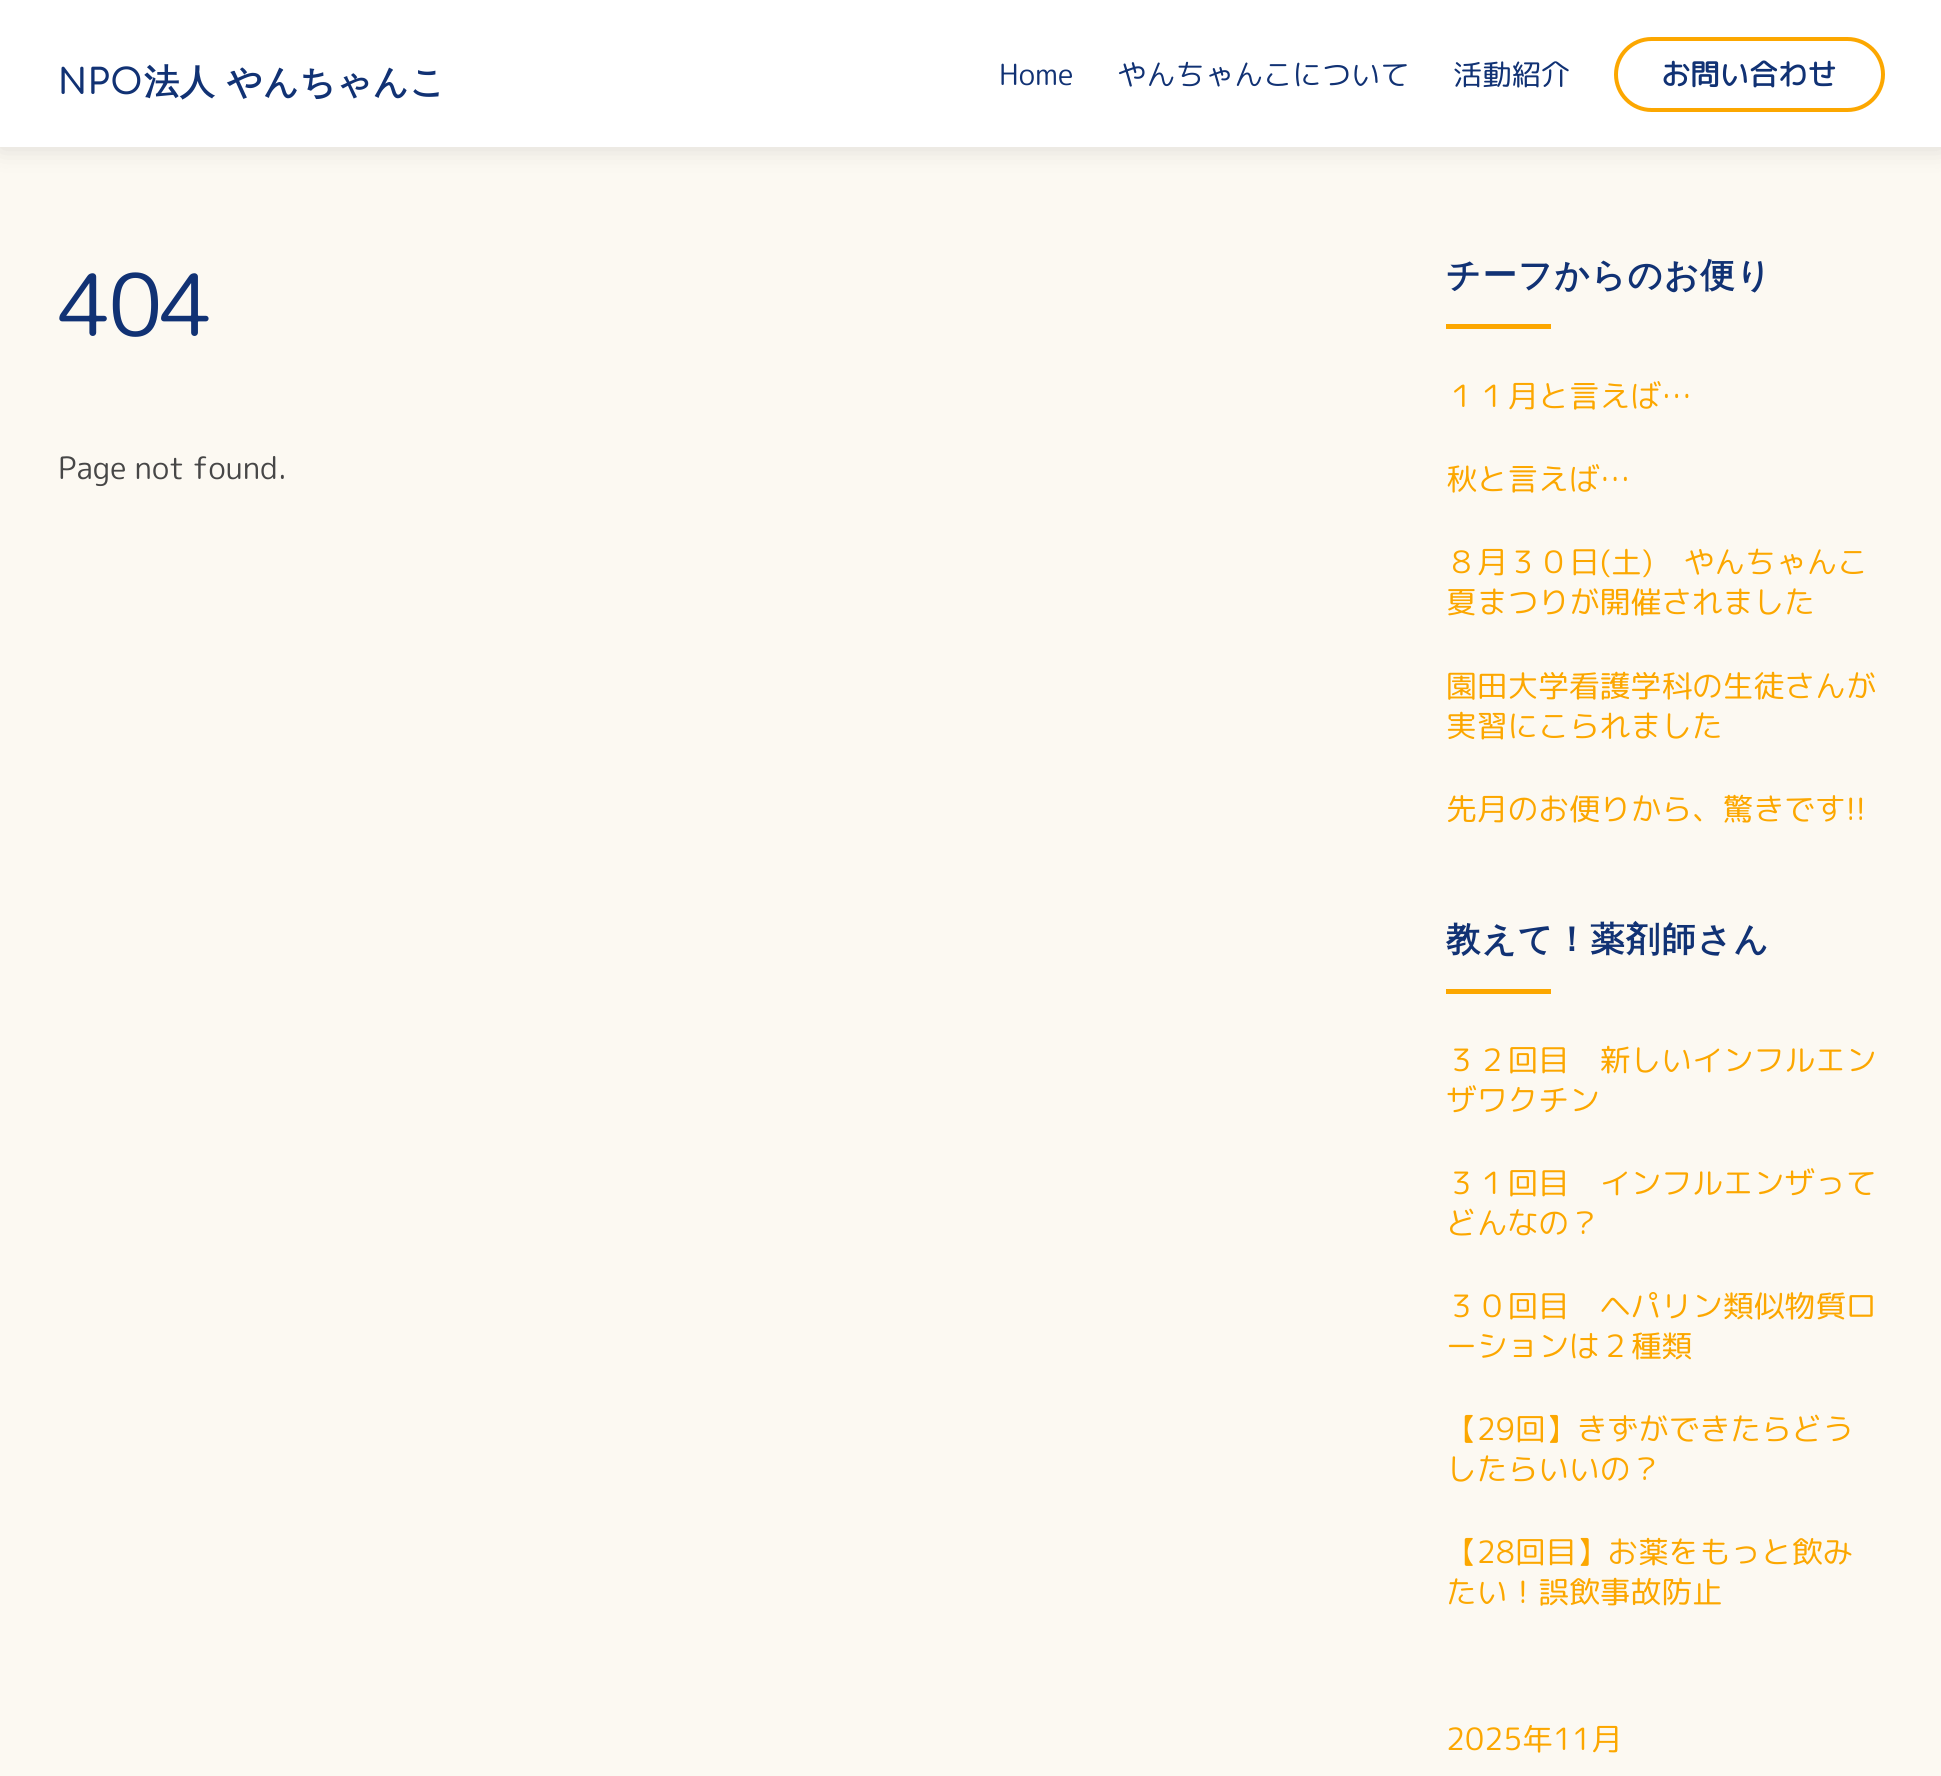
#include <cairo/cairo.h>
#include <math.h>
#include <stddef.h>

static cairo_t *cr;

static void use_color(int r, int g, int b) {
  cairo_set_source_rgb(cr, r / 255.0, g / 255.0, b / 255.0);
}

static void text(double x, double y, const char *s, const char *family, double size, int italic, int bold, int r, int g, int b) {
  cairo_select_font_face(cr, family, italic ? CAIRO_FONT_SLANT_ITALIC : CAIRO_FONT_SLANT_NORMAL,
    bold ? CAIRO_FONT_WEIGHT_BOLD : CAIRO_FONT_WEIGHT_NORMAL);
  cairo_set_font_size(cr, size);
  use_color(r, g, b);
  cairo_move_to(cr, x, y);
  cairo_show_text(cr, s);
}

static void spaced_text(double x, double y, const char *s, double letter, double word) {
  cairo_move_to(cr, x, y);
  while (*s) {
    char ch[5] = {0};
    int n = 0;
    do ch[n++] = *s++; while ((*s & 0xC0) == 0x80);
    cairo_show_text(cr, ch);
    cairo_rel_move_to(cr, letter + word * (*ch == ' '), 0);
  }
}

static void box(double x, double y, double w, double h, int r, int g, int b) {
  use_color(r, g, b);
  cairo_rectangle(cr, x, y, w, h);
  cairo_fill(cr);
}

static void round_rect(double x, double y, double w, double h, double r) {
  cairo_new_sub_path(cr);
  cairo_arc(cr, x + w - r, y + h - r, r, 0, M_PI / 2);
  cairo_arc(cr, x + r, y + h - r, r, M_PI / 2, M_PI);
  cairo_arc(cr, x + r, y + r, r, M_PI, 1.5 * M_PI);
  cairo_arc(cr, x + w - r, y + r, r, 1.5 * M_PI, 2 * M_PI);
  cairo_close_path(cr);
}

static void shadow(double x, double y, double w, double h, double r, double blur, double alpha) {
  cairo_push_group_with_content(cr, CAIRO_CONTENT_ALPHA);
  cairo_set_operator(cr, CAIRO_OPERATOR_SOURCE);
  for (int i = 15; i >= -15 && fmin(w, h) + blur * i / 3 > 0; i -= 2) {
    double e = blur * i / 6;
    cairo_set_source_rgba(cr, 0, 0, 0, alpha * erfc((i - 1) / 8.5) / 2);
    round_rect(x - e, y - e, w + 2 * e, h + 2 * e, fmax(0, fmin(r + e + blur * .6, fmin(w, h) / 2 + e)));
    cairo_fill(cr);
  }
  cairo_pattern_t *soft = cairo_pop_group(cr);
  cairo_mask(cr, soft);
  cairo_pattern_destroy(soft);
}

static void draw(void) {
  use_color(252, 249, 242);
  cairo_paint(cr);
  use_color(0, 0, 0);
  shadow(0, 2, 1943, 147, 0, 13, 0.12);
  box(0, 0, 1941, 147, 255, 255, 255);
  round_rect(1616, 39, 267, 71, 35.5);
  use_color(252, 167, 0);
  cairo_set_line_width(cr, 4);
  cairo_stroke(cr);
  box(1446, 324, 105, 5, 252, 167, 0);
  box(1446, 989, 105, 5, 252, 167, 0);
  cairo_select_font_face(cr, "Comfortaa SemiBold", CAIRO_FONT_SLANT_NORMAL, CAIRO_FONT_WEIGHT_NORMAL);
  cairo_set_font_size(cr, 35);
  use_color(17, 50, 116);
  spaced_text(58, 94, "NPO", 0.75, 0);
  cairo_select_font_face(cr, "WenQuanYi Zen Hei", CAIRO_FONT_SLANT_NORMAL, CAIRO_FONT_WEIGHT_BOLD);
  spaced_text(144, 94, "法人 やんちゃんこ", 0.75, 0);
  text(999, 85, "Home", "Rounded Mplus 1c", 29.25, 0, 0, 17, 50, 116);
  text(1117, 85, "やんちゃんこについて", "Rounded Mplus 1c", 29.25, 0, 0, 17, 50, 116);
  text(1453, 85, "活動紹介", "Rounded Mplus 1c", 29.25, 0, 0, 17, 50, 116);
  text(1661, 85, "お問い合わせ", "Rounded Mplus 1c", 29.25, 0, 1, 17, 50, 116);
  cairo_select_font_face(cr, "Rounded Mplus 1c", CAIRO_FONT_SLANT_NORMAL, CAIRO_FONT_WEIGHT_NORMAL);
  cairo_set_font_size(cr, 86);
  spaced_text(58, 336, "404", -2.5, 0);
  text(58, 479, "Page not found.", "Rounded Mplus 1c", 30.75, 0, 0, 71, 71, 71);
  cairo_select_font_face(cr, "WenQuanYi Zen Hei", CAIRO_FONT_SLANT_NORMAL, CAIRO_FONT_WEIGHT_BOLD);
  cairo_set_font_size(cr, 34.25);
  use_color(17, 50, 116);
  spaced_text(1446, 287, "チーフからのお便り", 1.4, 0);
  text(1446, 407, "１１月と言えば…", "Rounded Mplus 1c", 30.75, 0, 0, 252, 167, 0);
  text(1446, 490, "秋と言えば…", "Rounded Mplus 1c", 30.75, 0, 0, 252, 167, 0);
  text(1446, 573, "８月３０日(土)　やんちゃんこ", "Rounded Mplus 1c", 30.75, 0, 0, 252, 167, 0);
  text(1446, 613, "夏まつりが開催されました", "Rounded Mplus 1c", 30.75, 0, 0, 252, 167, 0);
  text(1446, 697, "園田大学看護学科の生徒さんが", "Rounded Mplus 1c", 30.75, 0, 0, 252, 167, 0);
  text(1446, 737, "実習にこられました", "Rounded Mplus 1c", 30.75, 0, 0, 252, 167, 0);
  text(1446, 820, "先月のお便りから、驚きです!!", "Rounded Mplus 1c", 30.75, 0, 0, 252, 167, 0);
  cairo_select_font_face(cr, "WenQuanYi Zen Hei", CAIRO_FONT_SLANT_NORMAL, CAIRO_FONT_WEIGHT_BOLD);
  cairo_set_font_size(cr, 34.25);
  use_color(17, 50, 116);
  spaced_text(1446, 951, "教えて！薬剤師さん", 1.4, 0);
  text(1446, 1071, "３２回目　新しいインフルエン", "Rounded Mplus 1c", 30.75, 0, 0, 252, 167, 0);
  text(1446, 1111, "ザワクチン", "Rounded Mplus 1c", 30.75, 0, 0, 252, 167, 0);
  text(1446, 1194, "３１回目　インフルエンザって", "Rounded Mplus 1c", 30.75, 0, 0, 252, 167, 0);
  text(1446, 1234, "どんなの？", "Rounded Mplus 1c", 30.75, 0, 0, 252, 167, 0);
  text(1446, 1317, "３０回目　ヘパリン類似物質ロ", "Rounded Mplus 1c", 30.75, 0, 0, 252, 167, 0);
  text(1446, 1357, "ーションは２種類", "Rounded Mplus 1c", 30.75, 0, 0, 252, 167, 0);
  text(1446, 1440, "【29回】きずができたらどう", "Rounded Mplus 1c", 30.75, 0, 0, 252, 167, 0);
  text(1446, 1480, "したらいいの？", "Rounded Mplus 1c", 30.75, 0, 0, 252, 167, 0);
  text(1446, 1563, "【28回目】お薬をもっと飲み", "Rounded Mplus 1c", 30.75, 0, 0, 252, 167, 0);
  text(1446, 1603, "たい！誤飲事故防止", "Rounded Mplus 1c", 30.75, 0, 0, 252, 167, 0);
  text(1446, 1750, "2025年11月", "Rounded Mplus 1c", 30.75, 0, 0, 252, 167, 0);
}

int main(void) {
  cairo_surface_t *surface = cairo_image_surface_create(CAIRO_FORMAT_RGB24, 1941, 1776);
  cr = cairo_create(surface);
  cairo_font_options_t *options = cairo_font_options_create();
  cairo_font_options_set_hint_metrics(options, CAIRO_HINT_METRICS_OFF);
  cairo_font_options_set_hint_style(options, CAIRO_HINT_STYLE_NONE);
  cairo_set_font_options(cr, options);
  cairo_set_miter_limit(cr, 4);
  draw();
  cairo_surface_write_to_png(surface, "out.png");
  cairo_font_options_destroy(options);
  cairo_destroy(cr);
  cairo_surface_destroy(surface);
  return 0;
}
